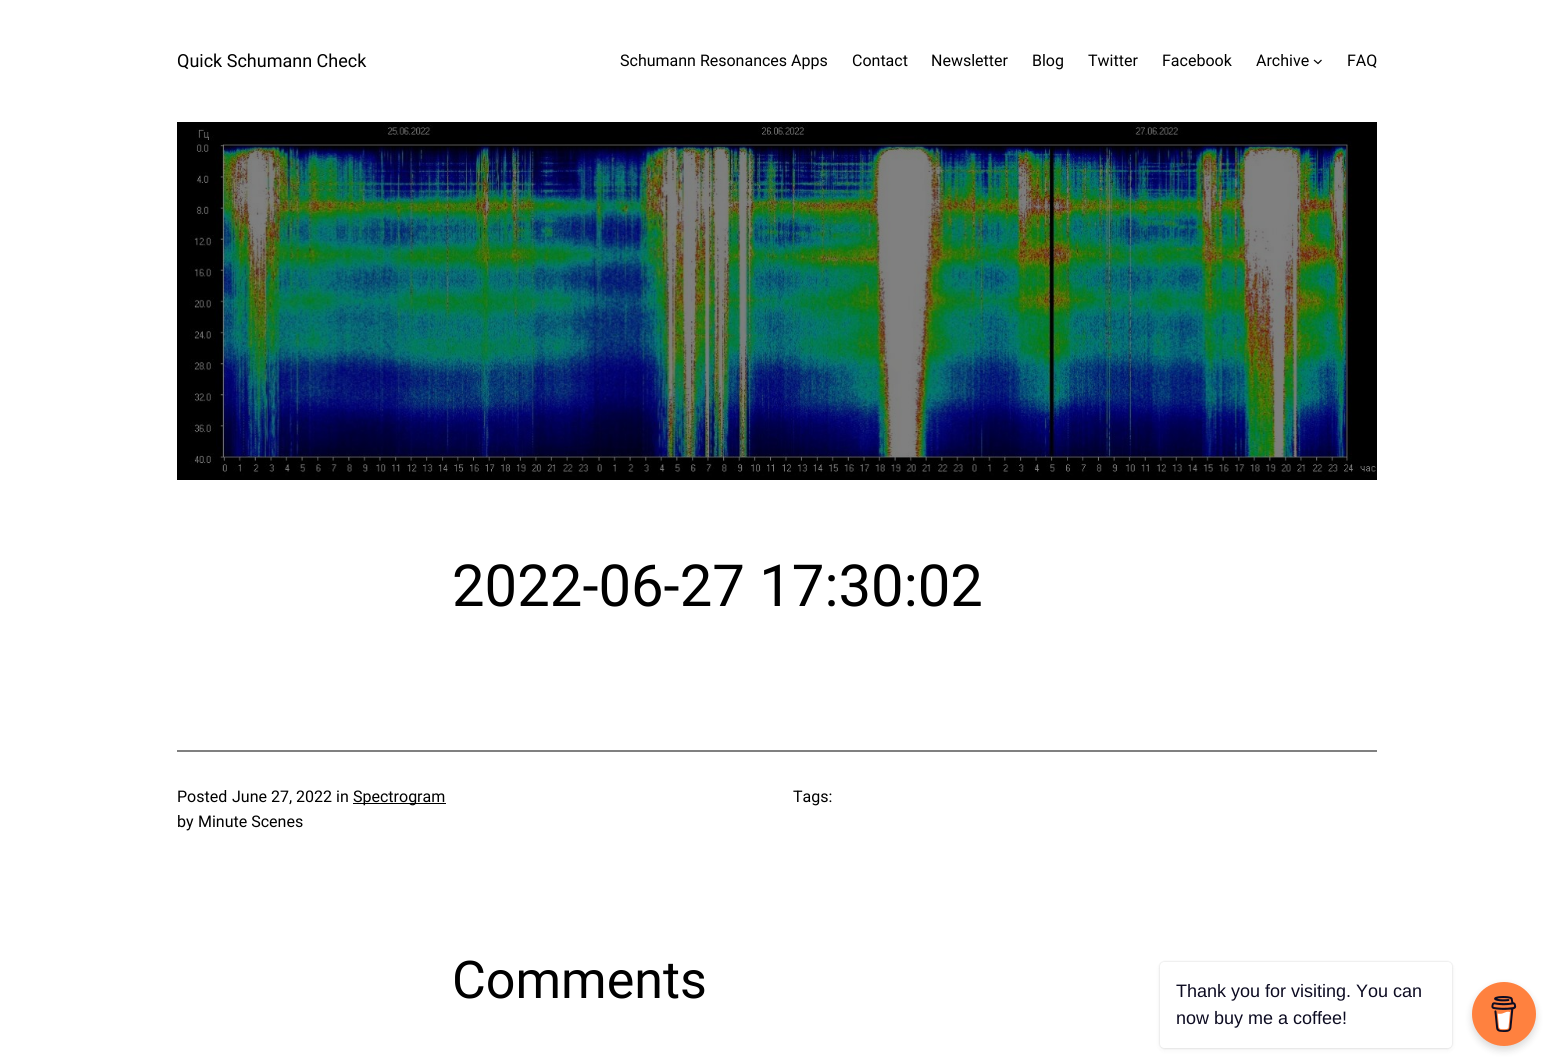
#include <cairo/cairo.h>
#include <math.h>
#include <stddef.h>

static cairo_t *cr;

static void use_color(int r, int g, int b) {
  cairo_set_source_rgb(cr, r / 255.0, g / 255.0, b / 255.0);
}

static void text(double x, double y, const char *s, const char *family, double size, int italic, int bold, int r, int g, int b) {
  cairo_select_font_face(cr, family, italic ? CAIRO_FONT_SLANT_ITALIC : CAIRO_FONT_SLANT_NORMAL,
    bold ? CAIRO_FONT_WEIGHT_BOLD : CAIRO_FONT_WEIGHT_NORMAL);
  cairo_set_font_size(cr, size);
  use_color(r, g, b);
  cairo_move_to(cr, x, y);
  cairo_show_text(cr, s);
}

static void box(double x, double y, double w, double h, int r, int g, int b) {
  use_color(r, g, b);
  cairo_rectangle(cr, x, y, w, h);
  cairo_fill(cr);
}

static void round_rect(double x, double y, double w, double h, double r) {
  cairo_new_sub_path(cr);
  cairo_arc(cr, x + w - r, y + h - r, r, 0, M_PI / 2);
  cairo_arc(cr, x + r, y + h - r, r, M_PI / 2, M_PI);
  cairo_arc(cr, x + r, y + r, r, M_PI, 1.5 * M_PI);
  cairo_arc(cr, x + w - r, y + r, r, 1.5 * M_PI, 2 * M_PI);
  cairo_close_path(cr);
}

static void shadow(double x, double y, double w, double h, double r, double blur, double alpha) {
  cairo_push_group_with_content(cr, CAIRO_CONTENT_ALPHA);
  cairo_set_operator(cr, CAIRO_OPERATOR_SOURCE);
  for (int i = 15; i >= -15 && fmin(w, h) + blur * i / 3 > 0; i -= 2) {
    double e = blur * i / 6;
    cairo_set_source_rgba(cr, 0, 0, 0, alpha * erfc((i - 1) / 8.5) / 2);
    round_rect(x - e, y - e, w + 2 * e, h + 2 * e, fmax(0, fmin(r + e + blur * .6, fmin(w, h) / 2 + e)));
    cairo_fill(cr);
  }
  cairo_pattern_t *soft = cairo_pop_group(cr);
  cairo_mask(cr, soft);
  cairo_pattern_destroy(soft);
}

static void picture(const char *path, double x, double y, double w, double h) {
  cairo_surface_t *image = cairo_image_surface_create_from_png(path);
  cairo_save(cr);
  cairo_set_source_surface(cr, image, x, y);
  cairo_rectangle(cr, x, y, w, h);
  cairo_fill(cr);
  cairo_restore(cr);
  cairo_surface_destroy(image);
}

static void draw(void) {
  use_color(255, 255, 255);
  cairo_paint(cr);
  cairo_new_path(cr);
  cairo_move_to(cr, 1314, 60);
  cairo_line_to(cr, 1318, 63.5);
  cairo_line_to(cr, 1321.5, 60);
  use_color(0, 0, 0);
  cairo_set_line_width(cr, 1.2);
  cairo_stroke(cr);
  picture("img_01.png", 177, 122, 1200, 358);
  box(177, 750, 1200, 2, 128, 128, 128);
  box(353, 803, 93, 1, 0, 0, 0);
  use_color(0, 0, 0);
  shadow(1160, 962, 292, 86, 4, 1, 0.15);
  shadow(1160, 964, 292, 86, 4, 2.5, 0.05);
  use_color(255, 255, 255);
  round_rect(1160, 962, 292, 86, 4);
  cairo_fill(cr);
  use_color(0, 0, 0);
  shadow(1472, 986, 64, 64, 32, 4, 0.15);
  use_color(255, 129, 63);
  cairo_arc(cr, 1504, 1014, 32, 0, 2 * M_PI);
  cairo_fill(cr);
  picture("img_02.png", 1491, 996, 26, 36);
  text(177, 67, "Quick Schumann Check", "Roboto", 18, 0, 0, 0, 0, 0);
  text(620, 66, "Schumann Resonances Apps", "Roboto", 16, 0, 0, 0, 0, 0);
  text(852, 66, "Contact", "Roboto", 16, 0, 0, 0, 0, 0);
  text(931, 66, "Newsletter", "Roboto", 16, 0, 0, 0, 0, 0);
  text(1032, 66, "Blog", "Roboto", 16, 0, 0, 0, 0, 0);
  text(1088, 66, "Twitter", "Roboto", 16, 0, 0, 0, 0, 0);
  text(1162, 66, "Facebook", "Roboto", 16, 0, 0, 0, 0, 0);
  text(1256, 66, "Archive", "Roboto", 16, 0, 0, 0, 0, 0);
  text(1347, 66, "FAQ", "Roboto", 16, 0, 0, 0, 0, 0);
  text(452, 606, "2022-06-27 17:30:02", "Roboto", 58, 0, 0, 0, 0, 0);
  text(177, 802, "Posted", "Roboto", 16, 0, 0, 0, 0, 0);
  text(232, 802, "June 27, 2022", "Roboto", 16, 0, 0, 0, 0, 0);
  text(336, 802, "in", "Roboto", 16, 0, 0, 0, 0, 0);
  text(353, 802, "Spectrogram", "Roboto", 16, 0, 0, 0, 0, 0);
  text(177, 827, "by", "Roboto", 16, 0, 0, 0, 0, 0);
  text(198, 827, "Minute Scenes", "Roboto", 16, 0, 0, 0, 0, 0);
  text(793, 802, "Tags:", "Roboto", 16, 0, 0, 0, 0, 0);
  text(452, 998, "Comments", "Roboto", 52, 0, 0, 0, 0, 0);
  text(1176, 997, "Thank you for visiting. You can", "Liberation Sans", 18, 0, 0, 13, 12, 34);
  text(1176, 1024, "now buy me a coffee!", "Liberation Sans", 18, 0, 0, 13, 12, 34);
}

int main(void) {
  cairo_surface_t *surface = cairo_image_surface_create(CAIRO_FORMAT_RGB24, 1554, 1064);
  cr = cairo_create(surface);
  cairo_font_options_t *options = cairo_font_options_create();
  cairo_font_options_set_hint_metrics(options, CAIRO_HINT_METRICS_OFF);
  cairo_font_options_set_hint_style(options, CAIRO_HINT_STYLE_NONE);
  cairo_set_font_options(cr, options);
  cairo_set_miter_limit(cr, 4);
  draw();
  cairo_surface_write_to_png(surface, "out.png");
  cairo_font_options_destroy(options);
  cairo_destroy(cr);
  cairo_surface_destroy(surface);
  return 0;
}
